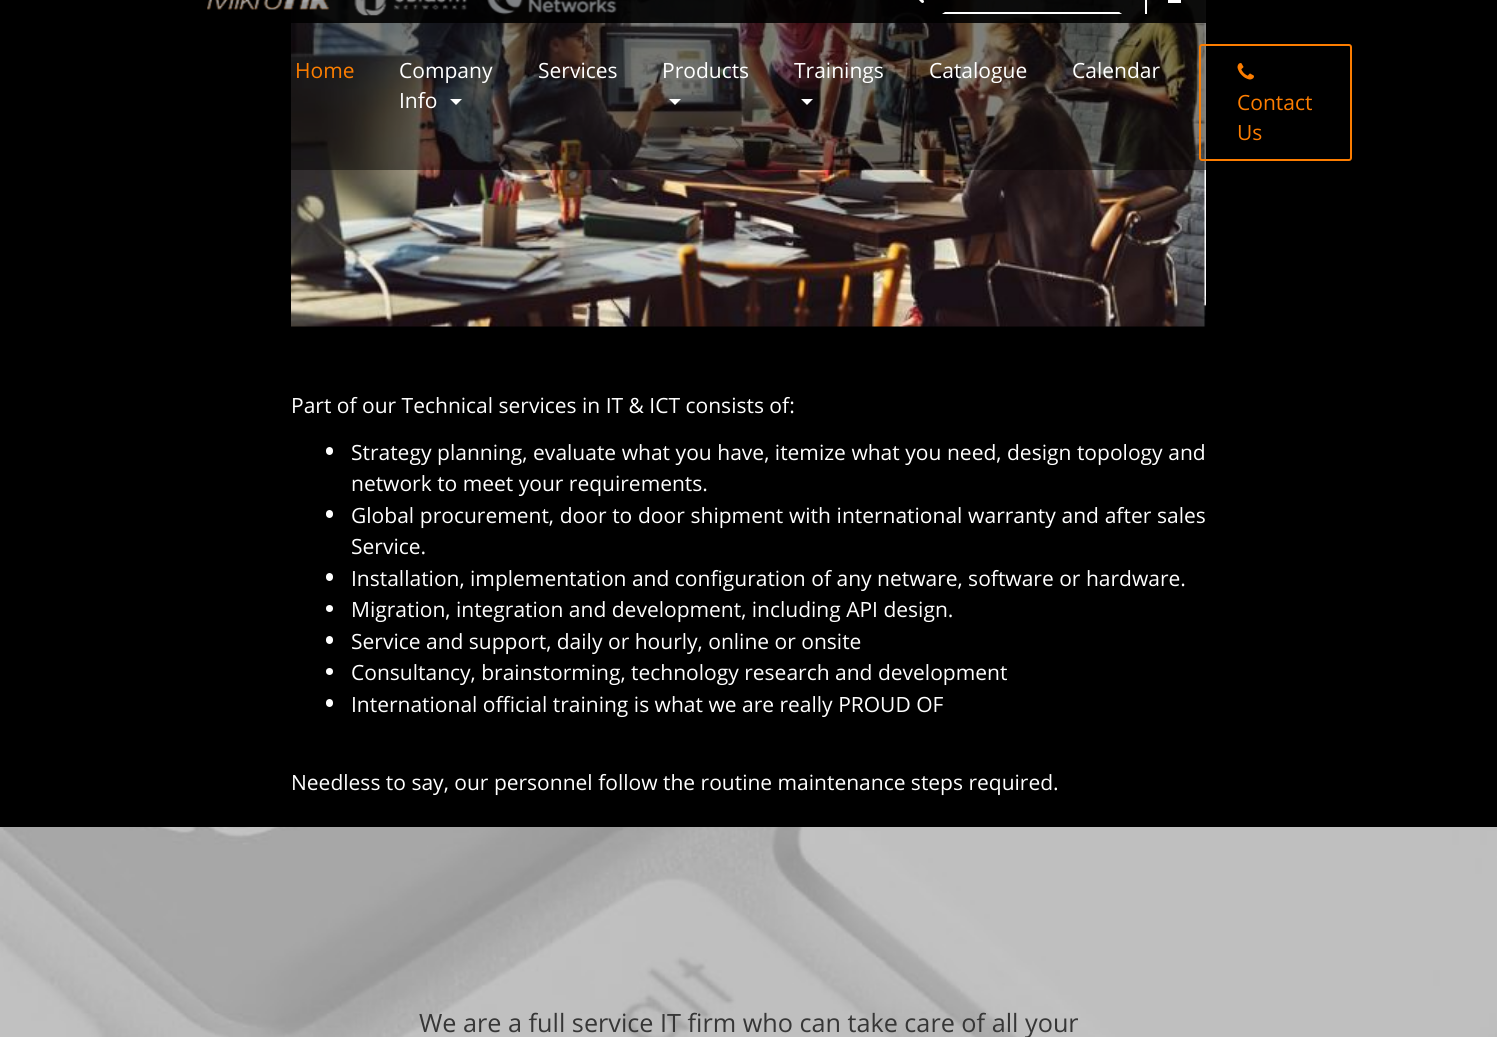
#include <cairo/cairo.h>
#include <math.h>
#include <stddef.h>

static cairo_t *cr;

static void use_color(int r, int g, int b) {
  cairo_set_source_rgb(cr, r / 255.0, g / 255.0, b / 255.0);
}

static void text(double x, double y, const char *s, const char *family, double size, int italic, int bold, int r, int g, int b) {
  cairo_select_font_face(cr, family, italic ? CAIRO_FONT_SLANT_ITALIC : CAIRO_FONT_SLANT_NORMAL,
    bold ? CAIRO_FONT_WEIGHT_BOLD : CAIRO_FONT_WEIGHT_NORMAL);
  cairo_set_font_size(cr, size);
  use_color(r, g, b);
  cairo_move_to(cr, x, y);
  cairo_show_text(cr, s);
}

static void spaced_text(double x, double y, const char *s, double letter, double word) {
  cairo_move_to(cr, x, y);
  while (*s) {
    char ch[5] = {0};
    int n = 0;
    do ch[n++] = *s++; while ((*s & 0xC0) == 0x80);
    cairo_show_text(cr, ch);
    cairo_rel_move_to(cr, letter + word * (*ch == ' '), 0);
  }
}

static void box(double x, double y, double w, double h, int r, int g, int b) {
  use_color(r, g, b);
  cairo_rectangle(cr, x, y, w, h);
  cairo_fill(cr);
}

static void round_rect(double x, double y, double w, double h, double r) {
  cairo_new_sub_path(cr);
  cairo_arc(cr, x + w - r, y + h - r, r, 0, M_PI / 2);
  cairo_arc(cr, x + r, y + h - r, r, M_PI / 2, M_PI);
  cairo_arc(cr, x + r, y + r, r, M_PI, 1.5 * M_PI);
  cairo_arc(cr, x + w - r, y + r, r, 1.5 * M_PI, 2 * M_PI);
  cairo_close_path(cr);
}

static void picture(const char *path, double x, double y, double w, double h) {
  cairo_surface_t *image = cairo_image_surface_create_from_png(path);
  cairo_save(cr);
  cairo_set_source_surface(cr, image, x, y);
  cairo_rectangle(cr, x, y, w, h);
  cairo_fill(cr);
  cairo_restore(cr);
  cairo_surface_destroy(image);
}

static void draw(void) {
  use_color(0, 0, 0);
  cairo_paint(cr);
  picture("img_04.png", 291, 0, 915, 327);
  cairo_set_source_rgba(cr, 0, 0, 0, 0.48);
  cairo_rectangle(cr, 291, 0, 915, 170);
  cairo_fill(cr);
  cairo_set_source_rgba(cr, 0, 0, 0, 0.9);
  cairo_rectangle(cr, 291, 0, 915, 23);
  cairo_fill(cr);
  picture("img_01.png", 207, 0, 410, 16);
  box(1145, 0, 2, 14, 255, 255, 255);
  picture("img_02.png", 919, 0, 5, 3);
  cairo_new_path(cr);
  cairo_move_to(cr, 1122, 14);
  cairo_line_to(cr, 942, 14);
  cairo_line_to(cr, 945, 12);
  cairo_line_to(cr, 1119, 12);
  cairo_close_path(cr);
  cairo_fill(cr);
  box(1168, 0, 13, 3, 255, 255, 255);
  cairo_new_path(cr);
  cairo_move_to(cr, 450, 99);
  cairo_line_to(cr, 462, 99);
  cairo_line_to(cr, 456, 105);
  cairo_close_path(cr);
  cairo_fill(cr);
  cairo_new_path(cr);
  cairo_move_to(cr, 669, 99);
  cairo_line_to(cr, 681, 99);
  cairo_line_to(cr, 675, 105);
  cairo_close_path(cr);
  cairo_fill(cr);
  cairo_new_path(cr);
  cairo_move_to(cr, 801, 99);
  cairo_line_to(cr, 813, 99);
  cairo_line_to(cr, 807, 105);
  cairo_close_path(cr);
  cairo_fill(cr);
  round_rect(1200, 45, 151, 115, 2);
  use_color(253, 125, 0);
  cairo_stroke(cr);
  picture("img_03.png", 1237, 63, 17, 17);
  use_color(255, 255, 255);
  round_rect(326, 447, 7, 8, 3.5);
  cairo_fill(cr);
  round_rect(326, 510, 7, 8, 3.5);
  cairo_fill(cr);
  round_rect(326, 573, 7, 8, 3.5);
  cairo_fill(cr);
  cairo_arc(cr, 329.5, 608.5, 3.5, 0, 2 * M_PI);
  cairo_fill(cr);
  round_rect(326, 636, 7, 8, 3.5);
  cairo_fill(cr);
  cairo_arc(cr, 329.5, 671.5, 3.5, 0, 2 * M_PI);
  cairo_fill(cr);
  round_rect(326, 699, 7, 8, 3.5);
  cairo_fill(cr);
  picture("img_05.png", 0, 827, 1497, 210);
  text(295, 78, "Home", "Open Sans", 21, 0, 0, 253, 125, 0);
  text(399, 78, "Company", "Open Sans", 21, 0, 0, 255, 255, 255);
  text(399, 108, "Info", "Open Sans", 21, 0, 0, 255, 255, 255);
  text(538, 78, "Services", "Open Sans", 21, 0, 0, 255, 255, 255);
  text(662, 78, "Products", "Open Sans", 21, 0, 0, 255, 255, 255);
  text(794, 78, "Trainings", "Open Sans", 21, 0, 0, 255, 255, 255);
  text(929, 78, "Catalogue", "Open Sans", 21, 0, 0, 255, 255, 255);
  text(1072, 78, "Calendar", "Open Sans", 21, 0, 0, 255, 255, 255);
  text(1237, 110, "Contact", "Open Sans", 21, 0, 0, 253, 125, 0);
  text(1237, 140, "Us", "Open Sans", 21, 0, 0, 253, 125, 0);
  text(291, 413, "Part of our Technical services in IT & ICT consists of:", "Open Sans", 21, 0, 0, 255, 255, 255);
  spaced_text(351, 460, "Strategy planning, evaluate what you have, itemize what you need, design topology and", 0, 0.1);
  text(351, 491, "network to meet your requirements.", "Open Sans", 21, 0, 0, 255, 255, 255);
  spaced_text(351, 523, "Global procurement, door to door shipment with international warranty and after sales", 0, 0.25);
  text(351, 554, "Service.", "Open Sans", 21, 0, 0, 255, 255, 255);
  text(351, 586, "Installation, implementation and configuration of any netware, software or hardware.", "Open Sans", 21, 0, 0, 255, 255, 255);
  text(351, 617, "Migration, integration and development, including API design.", "Open Sans", 21, 0, 0, 255, 255, 255);
  text(351, 649, "Service and support, daily or hourly, online or onsite", "Open Sans", 21, 0, 0, 255, 255, 255);
  text(351, 680, "Consultancy, brainstorming, technology research and development", "Open Sans", 21, 0, 0, 255, 255, 255);
  text(351, 712, "International official training is what we are really PROUD OF", "Open Sans", 21, 0, 0, 255, 255, 255);
  text(291, 790, "Needless to say, our personnel follow the routine maintenance steps required.", "Open Sans", 21, 0, 0, 255, 255, 255);
  text(419, 1032, "We are a full service IT firm who can take care of all your", "Open Sans", 25.2, 0, 0, 54, 54, 54);
}

int main(void) {
  cairo_surface_t *surface = cairo_image_surface_create(CAIRO_FORMAT_RGB24, 1497, 1037);
  cr = cairo_create(surface);
  cairo_font_options_t *options = cairo_font_options_create();
  cairo_font_options_set_hint_metrics(options, CAIRO_HINT_METRICS_OFF);
  cairo_font_options_set_hint_style(options, CAIRO_HINT_STYLE_NONE);
  cairo_set_font_options(cr, options);
  cairo_set_miter_limit(cr, 4);
  draw();
  cairo_surface_write_to_png(surface, "out.png");
  cairo_font_options_destroy(options);
  cairo_destroy(cr);
  cairo_surface_destroy(surface);
  return 0;
}
